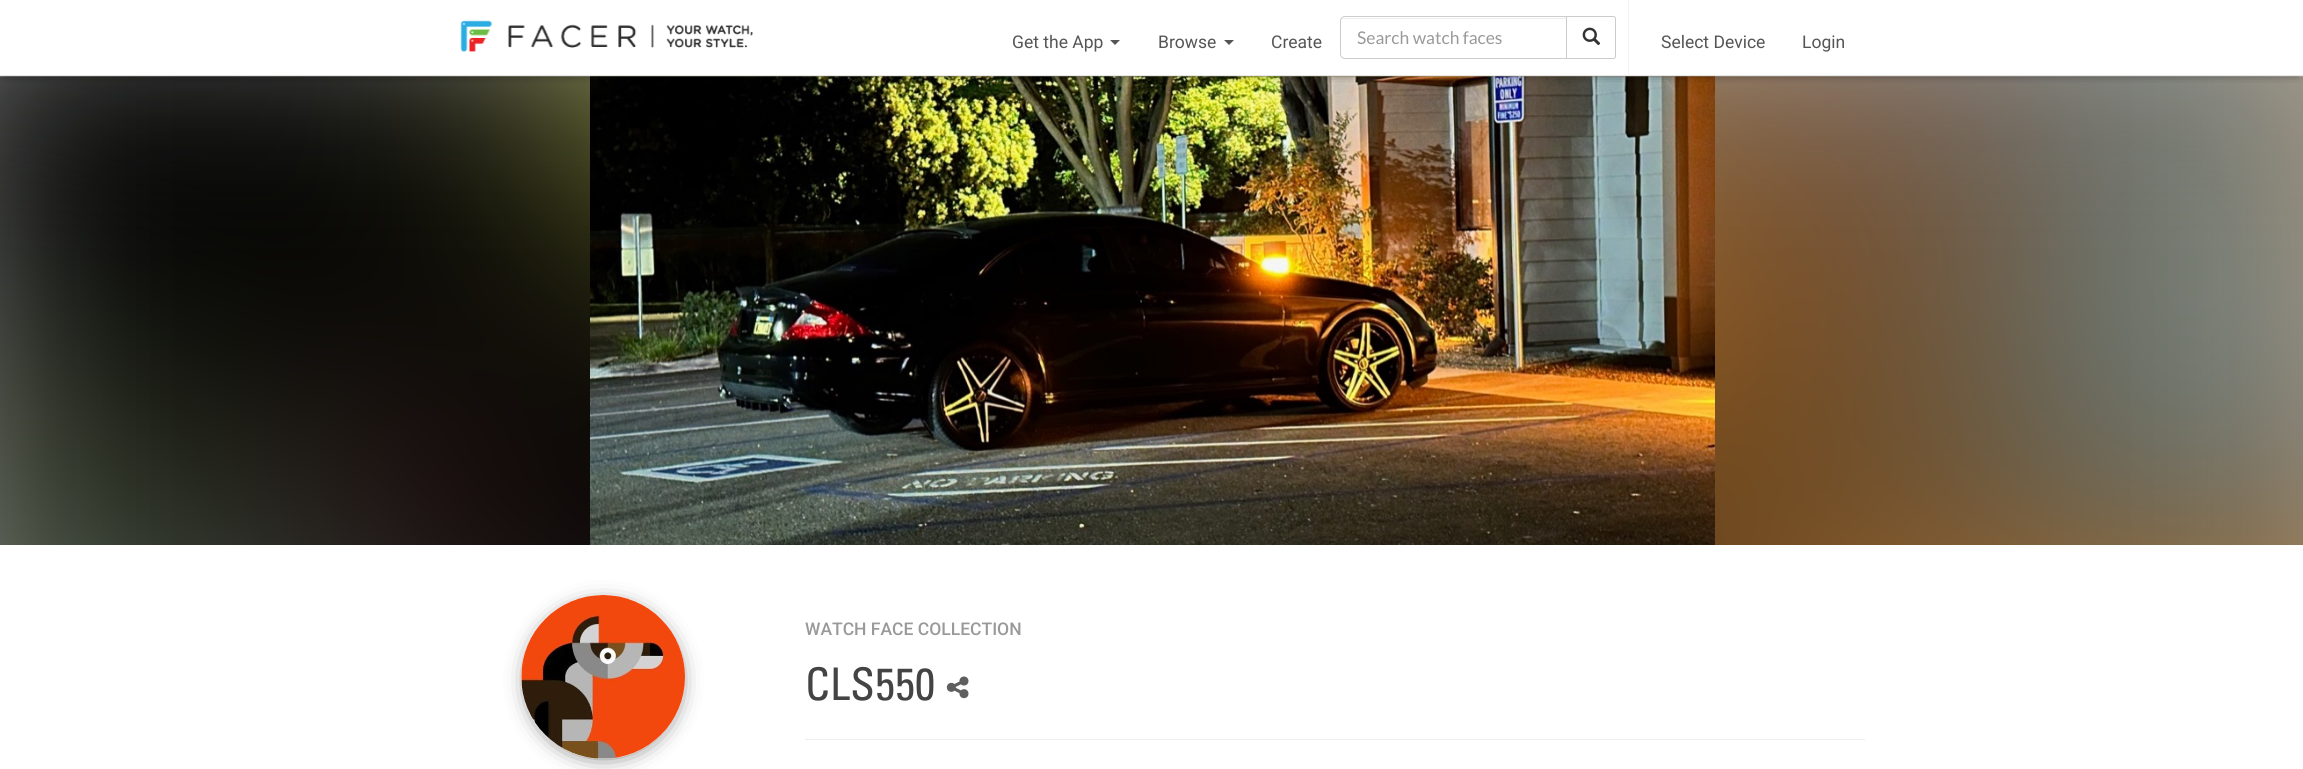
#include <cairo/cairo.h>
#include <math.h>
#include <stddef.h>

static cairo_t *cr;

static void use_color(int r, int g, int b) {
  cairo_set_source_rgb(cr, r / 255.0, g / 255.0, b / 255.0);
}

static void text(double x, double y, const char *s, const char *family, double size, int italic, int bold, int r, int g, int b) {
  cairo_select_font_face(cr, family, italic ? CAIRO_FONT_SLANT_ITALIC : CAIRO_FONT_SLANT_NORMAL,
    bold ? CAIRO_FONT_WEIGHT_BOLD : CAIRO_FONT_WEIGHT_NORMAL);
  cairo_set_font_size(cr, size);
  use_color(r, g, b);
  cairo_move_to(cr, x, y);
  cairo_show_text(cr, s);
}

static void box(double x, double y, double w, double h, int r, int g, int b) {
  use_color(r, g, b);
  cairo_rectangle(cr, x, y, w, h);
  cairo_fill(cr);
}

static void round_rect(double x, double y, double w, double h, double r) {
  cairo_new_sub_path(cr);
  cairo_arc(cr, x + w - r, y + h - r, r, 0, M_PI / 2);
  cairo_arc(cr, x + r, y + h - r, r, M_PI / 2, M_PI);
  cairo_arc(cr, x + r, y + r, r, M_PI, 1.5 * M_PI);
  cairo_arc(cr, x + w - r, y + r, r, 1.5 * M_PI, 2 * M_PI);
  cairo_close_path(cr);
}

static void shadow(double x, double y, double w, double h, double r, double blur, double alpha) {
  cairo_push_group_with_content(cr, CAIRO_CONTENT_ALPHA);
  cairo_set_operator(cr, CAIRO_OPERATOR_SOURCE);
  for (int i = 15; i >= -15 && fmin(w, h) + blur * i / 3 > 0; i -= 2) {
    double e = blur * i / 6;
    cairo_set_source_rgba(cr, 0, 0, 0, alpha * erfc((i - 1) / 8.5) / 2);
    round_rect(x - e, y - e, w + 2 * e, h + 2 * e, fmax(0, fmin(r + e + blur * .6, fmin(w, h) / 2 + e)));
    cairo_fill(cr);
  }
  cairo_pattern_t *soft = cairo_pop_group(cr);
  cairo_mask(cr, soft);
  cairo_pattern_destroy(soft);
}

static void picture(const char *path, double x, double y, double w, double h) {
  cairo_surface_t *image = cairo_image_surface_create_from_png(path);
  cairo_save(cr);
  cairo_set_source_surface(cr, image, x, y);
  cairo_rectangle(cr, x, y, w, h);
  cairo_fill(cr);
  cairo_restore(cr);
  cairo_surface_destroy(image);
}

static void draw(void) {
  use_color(255, 255, 255);
  cairo_paint(cr);
  box(0, 76, 2303, 469, 243, 244, 245);
  picture("img_03.png", 0, 76, 2303, 469);
  picture("img_04.png", 590, 76, 1125, 469);
  cairo_save(cr);
  cairo_rectangle(cr, 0, 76, 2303, 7);
  cairo_clip(cr);
  use_color(0, 0, 0);
  shadow(6, 8, 2292, 63, 0, 6, 1);
  cairo_restore(cr);
  box(0, 75, 2303, 1, 231, 231, 231);
  picture("img_01.png", 460, 20, 293, 32);
  use_color(85, 85, 85);
  cairo_new_path(cr);
  cairo_move_to(cr, 1110, 40);
  cairo_line_to(cr, 1120, 40);
  cairo_line_to(cr, 1115, 45);
  cairo_close_path(cr);
  cairo_fill(cr);
  cairo_new_path(cr);
  cairo_move_to(cr, 1224, 40);
  cairo_line_to(cr, 1234, 40);
  cairo_line_to(cr, 1229, 45);
  cairo_close_path(cr);
  cairo_fill(cr);
  use_color(236, 236, 236);
  cairo_new_path(cr);
  cairo_move_to(cr, 1345, 19);
  cairo_line_to(cr, 1566, 19);
  cairo_line_to(cr, 1566, 18);
  cairo_line_to(cr, 1345, 18);
  cairo_curve_to(cr, 1343, 18, 1341, 20, 1341, 22);
  cairo_curve_to(cr, 1341, 20, 1343, 19, 1345, 19);
  cairo_close_path(cr);
  cairo_fill(cr);
  cairo_new_path(cr);
  cairo_move_to(cr, 1345, 16.5);
  cairo_line_to(cr, 1567.5, 16.5);
  cairo_line_to(cr, 1567.5, 58.5);
  cairo_line_to(cr, 1345, 58.5);
  cairo_curve_to(cr, 1342.5, 58.5, 1340.5, 56.5, 1340.5, 54);
  cairo_line_to(cr, 1340.5, 21);
  cairo_curve_to(cr, 1340.5, 18.5, 1342.5, 16.5, 1345, 16.5);
  cairo_close_path(cr);
  use_color(204, 204, 204);
  cairo_set_line_width(cr, 1);
  cairo_stroke(cr);
  use_color(255, 255, 255);
  cairo_new_path(cr);
  cairo_move_to(cr, 1566.5, 16.5);
  cairo_line_to(cr, 1613.5, 16.5);
  cairo_curve_to(cr, 1614.5, 16.5, 1615.5, 17.5, 1615.5, 18.5);
  cairo_line_to(cr, 1615.5, 56.5);
  cairo_curve_to(cr, 1615.5, 57.5, 1614.5, 58.5, 1613.5, 58.5);
  cairo_line_to(cr, 1566.5, 58.5);
  cairo_close_path(cr);
  cairo_fill_preserve(cr);
  use_color(204, 204, 204);
  cairo_stroke(cr);
  picture("img_02.png", 1582, 27, 19, 19);
  box(1628, 0, 1, 75, 242, 242, 242);
  use_color(0, 0, 0);
  shadow(534, 611, 139, 139, 69.5, 12.5, 1);
  use_color(255, 255, 255);
  cairo_arc(cr, 603, 677, 82, 0, 2 * M_PI);
  cairo_fill(cr);
  picture("img_05.png", 521, 595, 164, 164);
  picture("img_06.png", 946, 676, 23, 23);
  box(805, 739, 1060, 1, 238, 238, 238);
  text(1012, 48, "Get the App", "Roboto", 17.5, 0, 0, 85, 85, 85);
  text(1158, 48, "Browse", "Roboto", 17.5, 0, 0, 85, 85, 85);
  text(1271, 48, "Create", "Roboto", 17.5, 0, 0, 85, 85, 85);
  text(1357, 44, "Search watch faces", "Lato", 17.5, 0, 0, 153, 153, 153);
  text(1661, 48, "Select Device", "Roboto", 17.5, 0, 0, 85, 85, 85);
  text(1802, 48, "Login", "Roboto", 17.5, 0, 0, 85, 85, 85);
  text(805, 635, "WATCH FACE COLLECTION", "Roboto Medium", 17.5, 0, 0, 153, 153, 153);
  text(805, 700, "CLS550", "Univers", 45, 0, 0, 68, 68, 68);
}

int main(void) {
  cairo_surface_t *surface = cairo_image_surface_create(CAIRO_FORMAT_RGB24, 2303, 769);
  cr = cairo_create(surface);
  cairo_font_options_t *options = cairo_font_options_create();
  cairo_font_options_set_hint_metrics(options, CAIRO_HINT_METRICS_OFF);
  cairo_font_options_set_hint_style(options, CAIRO_HINT_STYLE_NONE);
  cairo_set_font_options(cr, options);
  cairo_set_miter_limit(cr, 4);
  draw();
  cairo_surface_write_to_png(surface, "out.png");
  cairo_font_options_destroy(options);
  cairo_destroy(cr);
  cairo_surface_destroy(surface);
  return 0;
}
